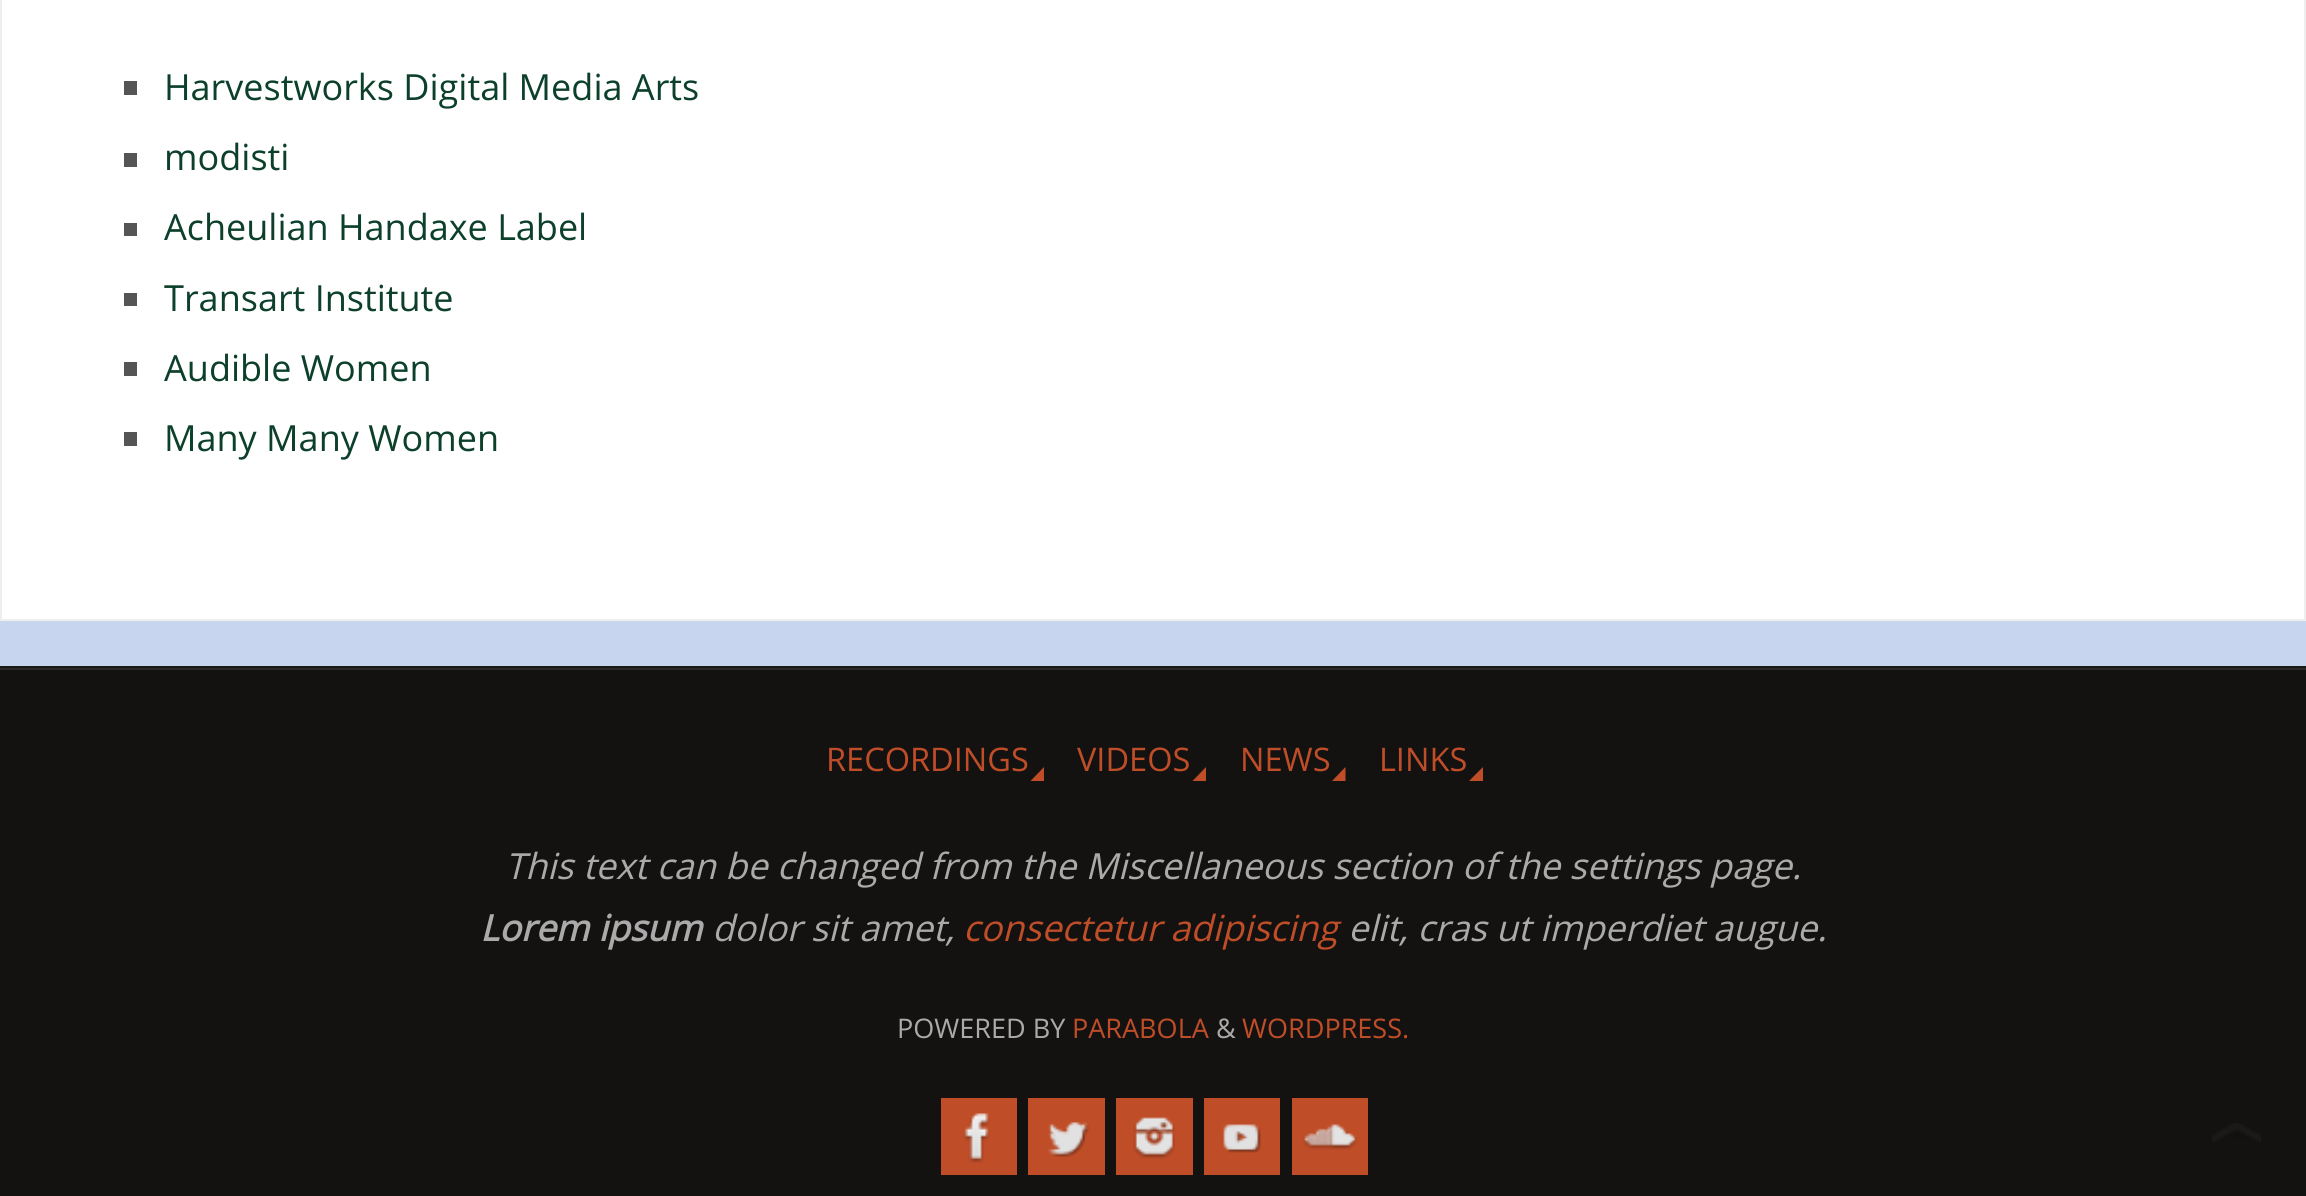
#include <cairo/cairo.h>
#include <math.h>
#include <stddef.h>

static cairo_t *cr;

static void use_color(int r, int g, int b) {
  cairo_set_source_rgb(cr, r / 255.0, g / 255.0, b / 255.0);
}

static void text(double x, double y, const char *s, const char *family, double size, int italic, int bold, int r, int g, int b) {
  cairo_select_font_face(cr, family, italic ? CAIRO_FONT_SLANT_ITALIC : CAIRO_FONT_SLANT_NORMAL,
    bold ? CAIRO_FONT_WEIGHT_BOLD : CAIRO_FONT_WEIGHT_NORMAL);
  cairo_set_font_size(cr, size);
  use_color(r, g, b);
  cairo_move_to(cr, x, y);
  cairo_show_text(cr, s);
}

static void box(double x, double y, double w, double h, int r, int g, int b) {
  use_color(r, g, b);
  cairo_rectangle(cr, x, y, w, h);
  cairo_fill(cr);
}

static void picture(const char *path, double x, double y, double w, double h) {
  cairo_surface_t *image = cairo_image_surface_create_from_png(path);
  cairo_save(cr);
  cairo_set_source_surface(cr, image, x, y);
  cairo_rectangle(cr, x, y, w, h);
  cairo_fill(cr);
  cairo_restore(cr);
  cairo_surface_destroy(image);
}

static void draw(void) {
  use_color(199, 213, 239);
  cairo_paint(cr);
  use_color(255, 255, 255);
  cairo_rectangle(cr, 1, -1, 2304, 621);
  cairo_fill_preserve(cr);
  use_color(238, 238, 238);
  cairo_stroke(cr);
  box(124, 81, 13, 14, 85, 85, 85);
  box(124, 153, 13, 14, 85, 85, 85);
  box(124, 223, 13, 13, 85, 85, 85);
  box(124, 293, 13, 13, 85, 85, 85);
  box(124, 362, 13, 14, 85, 85, 85);
  box(124, 432, 13, 14, 85, 85, 85);
  box(0, 666, 2306, 2, 26, 25, 23);
  box(0, 670, 2306, 526, 19, 18, 17);
  box(0, 668, 2306, 2, 43, 42, 41);
  use_color(191, 77, 40);
  cairo_new_path(cr);
  cairo_move_to(cr, 1044, 781);
  cairo_line_to(cr, 1030.5, 781);
  cairo_line_to(cr, 1044, 767);
  cairo_close_path(cr);
  cairo_fill(cr);
  cairo_new_path(cr);
  cairo_move_to(cr, 1206, 781);
  cairo_line_to(cr, 1192.5, 781);
  cairo_line_to(cr, 1206, 767);
  cairo_close_path(cr);
  cairo_fill(cr);
  cairo_new_path(cr);
  cairo_move_to(cr, 1345.5, 781);
  cairo_line_to(cr, 1332, 781);
  cairo_line_to(cr, 1345.5, 767);
  cairo_close_path(cr);
  cairo_fill(cr);
  cairo_new_path(cr);
  cairo_move_to(cr, 1483, 781);
  cairo_line_to(cr, 1469, 781);
  cairo_line_to(cr, 1483, 767);
  cairo_close_path(cr);
  cairo_fill(cr);
  box(941, 1098, 76, 77, 191, 77, 40);
  picture("img_01.png", 963, 1113, 27, 50);
  box(1028, 1098, 77, 77, 191, 77, 40);
  picture("img_02.png", 1048, 1122, 42, 35);
  box(1116, 1098, 77, 77, 191, 77, 40);
  picture("img_03.png", 1133, 1117, 42, 42);
  box(1204, 1098, 76, 77, 191, 77, 40);
  picture("img_04.png", 1223, 1124, 38, 29);
  box(1292, 1098, 76, 77, 191, 77, 40);
  picture("img_05.png", 1303, 1124, 54, 26);
  picture("img_06.png", 2212, 1123, 49, 19);
  text(164, 100, "Harvestworks Digital Media Arts", "Open Sans", 36, 0, 0, 12, 64, 43);
  text(164, 170, "modisti", "Open Sans", 36, 0, 0, 12, 64, 43);
  text(164, 240, "Acheulian Handaxe Label", "Open Sans", 36, 0, 0, 12, 64, 43);
  text(164, 311, "Transart Institute", "Open Sans", 36, 0, 0, 12, 64, 43);
  text(164, 381, "Audible Women", "Open Sans", 36, 0, 0, 12, 64, 43);
  text(164, 451, "Many Many Women", "Open Sans", 36, 0, 0, 12, 64, 43);
  text(826, 771, "RECORDINGS", "Open Sans", 32.5, 0, 0, 191, 77, 40);
  text(1077, 771, "VIDEOS", "Open Sans", 32.5, 0, 0, 191, 77, 40);
  text(1240, 771, "NEWS", "Open Sans", 32.5, 0, 0, 191, 77, 40);
  text(1379, 771, "LINKS", "Open Sans", 32.5, 0, 0, 191, 77, 40);
  text(505, 879, "This text can be changed from the Miscellaneous section of the settings page.", "Open Sans", 36, 1, 0, 170, 170, 170);
  text(480, 941, "Lorem ipsum", "Open Sans", 36, 1, 1, 170, 170, 170);
  text(712, 941, "dolor sit amet,", "Open Sans", 36, 1, 0, 170, 170, 170);
  text(963, 941, "consectetur adipiscing", "Open Sans", 36, 1, 0, 191, 77, 40);
  text(1348, 941, "elit, cras ut imperdiet augue.", "Open Sans", 36, 1, 0, 170, 170, 170);
  text(897, 1038, "POWERED BY", "Open Sans", 27, 0, 0, 170, 170, 170);
  text(1072, 1038, "PARABOLA", "Open Sans", 27, 0, 0, 191, 77, 40);
  text(1216, 1038, "&", "Open Sans", 27, 0, 0, 170, 170, 170);
  text(1242, 1038, "WORDPRESS.", "Open Sans", 27, 0, 0, 191, 77, 40);
}

int main(void) {
  cairo_surface_t *surface = cairo_image_surface_create(CAIRO_FORMAT_RGB24, 2306, 1196);
  cr = cairo_create(surface);
  cairo_font_options_t *options = cairo_font_options_create();
  cairo_font_options_set_hint_metrics(options, CAIRO_HINT_METRICS_OFF);
  cairo_font_options_set_hint_style(options, CAIRO_HINT_STYLE_NONE);
  cairo_set_font_options(cr, options);
  cairo_set_miter_limit(cr, 4);
  draw();
  cairo_surface_write_to_png(surface, "out.png");
  cairo_font_options_destroy(options);
  cairo_destroy(cr);
  cairo_surface_destroy(surface);
  return 0;
}
